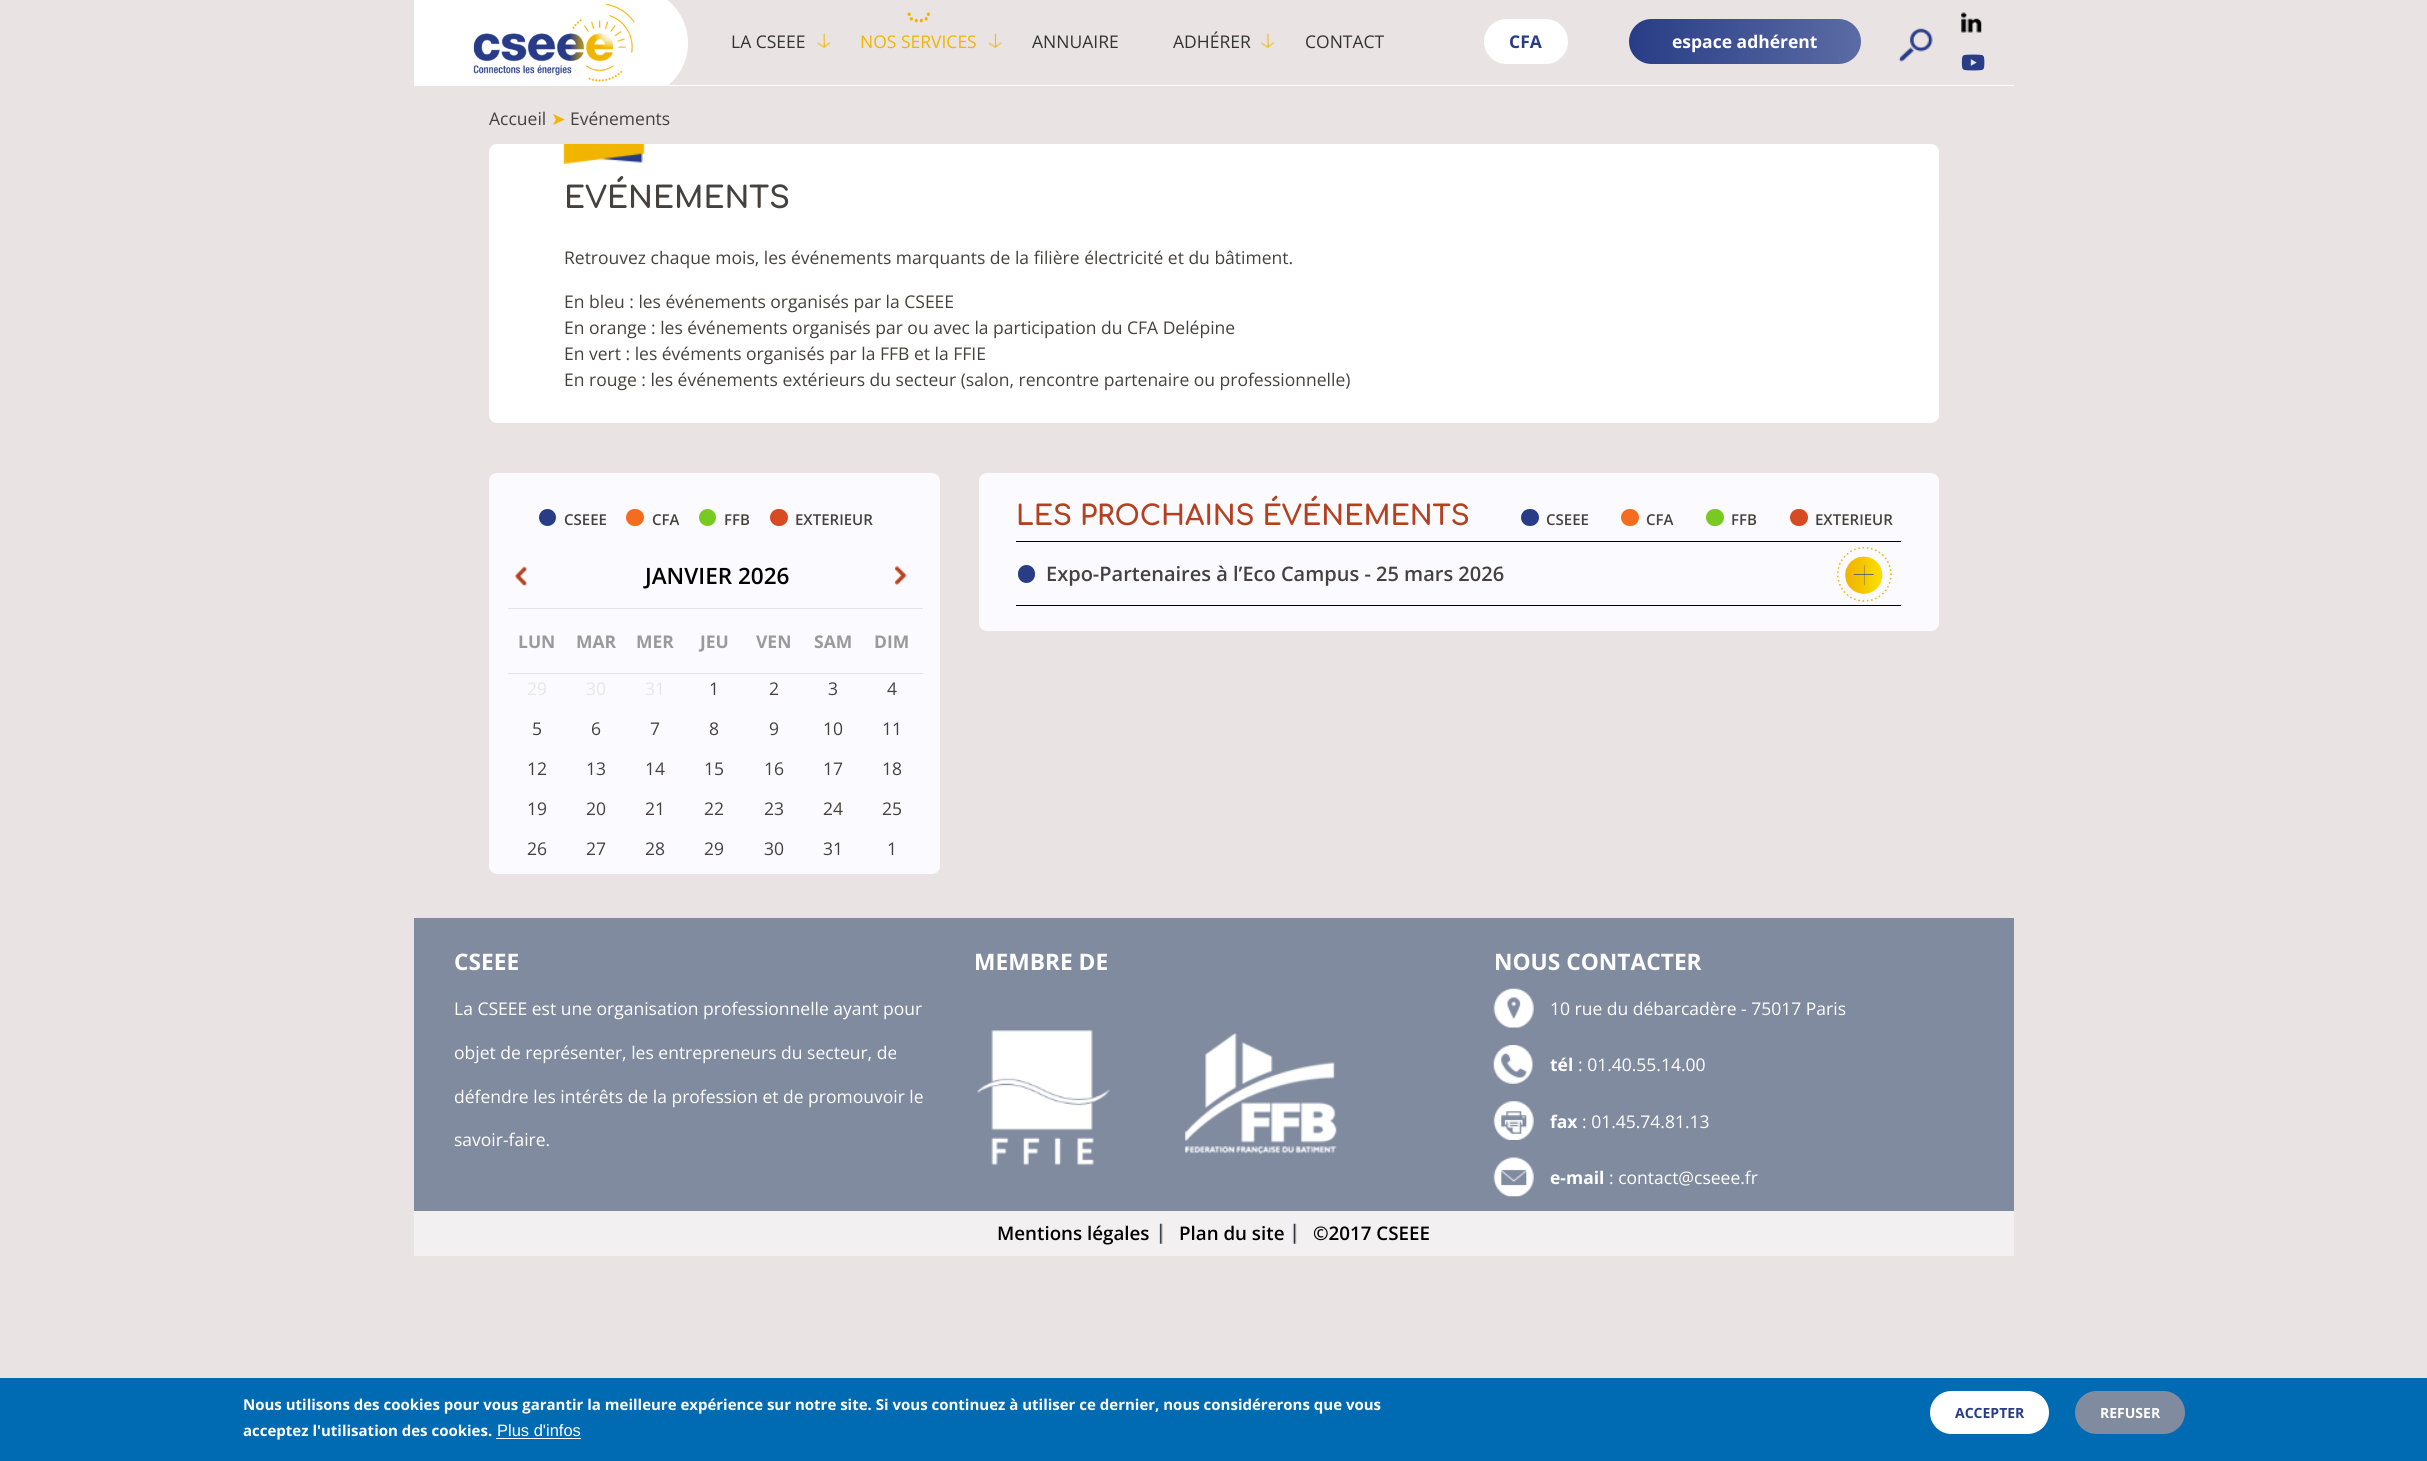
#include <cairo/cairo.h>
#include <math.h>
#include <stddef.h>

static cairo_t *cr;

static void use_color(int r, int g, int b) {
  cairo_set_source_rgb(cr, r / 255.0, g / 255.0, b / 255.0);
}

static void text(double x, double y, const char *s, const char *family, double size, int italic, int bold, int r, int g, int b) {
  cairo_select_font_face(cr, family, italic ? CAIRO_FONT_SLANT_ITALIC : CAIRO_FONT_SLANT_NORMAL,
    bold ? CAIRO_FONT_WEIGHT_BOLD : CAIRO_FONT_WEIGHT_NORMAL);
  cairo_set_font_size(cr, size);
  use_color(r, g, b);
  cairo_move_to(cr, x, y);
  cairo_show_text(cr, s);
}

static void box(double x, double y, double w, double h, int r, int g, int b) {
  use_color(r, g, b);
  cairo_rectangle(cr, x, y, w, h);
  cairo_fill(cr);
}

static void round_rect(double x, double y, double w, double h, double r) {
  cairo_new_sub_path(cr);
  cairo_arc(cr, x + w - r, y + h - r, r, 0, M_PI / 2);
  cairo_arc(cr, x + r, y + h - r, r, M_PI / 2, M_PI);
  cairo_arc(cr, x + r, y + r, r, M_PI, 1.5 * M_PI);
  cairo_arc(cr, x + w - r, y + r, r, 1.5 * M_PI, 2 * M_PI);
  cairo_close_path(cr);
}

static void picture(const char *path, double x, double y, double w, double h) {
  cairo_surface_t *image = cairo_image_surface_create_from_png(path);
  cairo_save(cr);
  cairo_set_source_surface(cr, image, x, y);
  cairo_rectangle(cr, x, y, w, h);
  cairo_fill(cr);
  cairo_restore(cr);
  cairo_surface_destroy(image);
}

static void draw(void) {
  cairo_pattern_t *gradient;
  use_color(233, 227, 228);
  cairo_paint(cr);
  box(414, 85, 1600, 1, 255, 255, 255);
  cairo_save(cr);
  cairo_rectangle(cr, 414, 0, 274, 85);
  cairo_clip(cr);
  cairo_new_path(cr);
  cairo_move_to(cr, 414, -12);
  cairo_line_to(cr, 633, -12);
  cairo_curve_to(cr, 663.5, -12, 688, 12.5, 688, 43);
  cairo_curve_to(cr, 688, 73.5, 663.5, 98, 633, 98);
  cairo_line_to(cr, 414, 98);
  cairo_close_path(cr);
  cairo_fill(cr);
  cairo_restore(cr);
  picture("img_01.png", 473, 3, 162, 79);
  picture("img_02.png", 817, 33, 14, 15);
  picture("img_03.png", 988, 33, 14, 15);
  picture("img_04.png", 907, 12, 23, 11);
  picture("img_05.png", 1261, 33, 13, 15);
  round_rect(1484, 19, 84, 45, 22.5);
  cairo_fill(cr);
  gradient = cairo_pattern_create_linear(1629, 41, 1861, 41);
  cairo_pattern_add_color_stop_rgba(gradient, 0, 0.157, 0.239, 0.525, 1);
  cairo_pattern_add_color_stop_rgba(gradient, 1, 0.357, 0.42, 0.643, 1);
  cairo_set_source(cr, gradient);
  cairo_pattern_destroy(gradient);
  round_rect(1629, 19, 232, 45, 22.5);
  cairo_fill(cr);
  picture("img_06.png", 1898, 28, 35, 34);
  picture("img_07.png", 1961, 12, 21, 21);
  picture("img_08.png", 1961, 54, 24, 17);
  use_color(255, 255, 255);
  round_rect(489, 144, 1450, 82, 8);
  cairo_fill(cr);
  picture("img_09.png", 563, 143, 82, 21);
  round_rect(489, 214, 1450, 209, 8);
  cairo_fill(cr);
  use_color(250, 250, 255);
  round_rect(489, 473, 451, 401, 8);
  cairo_fill(cr);
  use_color(40, 61, 134);
  cairo_arc(cr, 547.5, 517.5, 8.5, 0, 2 * M_PI);
  cairo_fill(cr);
  use_color(244, 108, 30);
  round_rect(626, 509, 18, 17, 8.5);
  cairo_fill(cr);
  use_color(120, 201, 32);
  cairo_arc(cr, 707.5, 517.5, 8.5, 0, 2 * M_PI);
  cairo_fill(cr);
  use_color(214, 75, 36);
  round_rect(770, 509, 18, 17, 8.5);
  cairo_fill(cr);
  picture("img_10.png", 515, 566, 12, 21);
  picture("img_11.png", 894, 566, 13, 19);
  box(508, 608, 415, 1, 227, 227, 232);
  box(508, 673, 415, 1, 227, 227, 232);
  use_color(250, 250, 255);
  round_rect(979, 473, 960, 158, 8);
  cairo_fill(cr);
  use_color(40, 61, 134);
  round_rect(1521, 509, 18, 17, 8.5);
  cairo_fill(cr);
  use_color(244, 108, 30);
  round_rect(1621, 509, 18, 17, 8.5);
  cairo_fill(cr);
  use_color(120, 201, 32);
  round_rect(1706, 509, 18, 17, 8.5);
  cairo_fill(cr);
  use_color(214, 75, 36);
  round_rect(1790, 509, 18, 17, 8.5);
  cairo_fill(cr);
  box(1016, 541, 885, 1, 0, 0, 0);
  picture("img_12.png", 1837, 547, 55, 55);
  use_color(40, 61, 134);
  round_rect(1018, 565, 17, 18, 8.5);
  cairo_fill(cr);
  box(1016, 605, 885, 1, 0, 0, 0);
  box(414, 918, 1600, 293, 128, 139, 159);
  picture("img_13.png", 977, 1030, 360, 136);
  picture("img_14.png", 1493, 988, 41, 40);
  picture("img_15.png", 1493, 1045, 40, 39);
  picture("img_16.png", 1493, 1101, 41, 39);
  picture("img_17.png", 1493, 1157, 41, 40);
  box(414, 1211, 1600, 45, 243, 240, 241);
  picture("img_18.png", 1159, 1223, 4, 21);
  picture("img_19.png", 1292, 1223, 5, 21);
  box(0, 1378, 2427, 83, 0, 106, 179);
  box(496, 1438, 85, 1, 255, 255, 255);
  round_rect(1930, 1391, 119, 43, 21.5);
  cairo_fill(cr);
  use_color(128, 139, 159);
  round_rect(2075, 1391, 110, 43, 21.5);
  cairo_fill(cr);
  text(731, 48, "LA CSEEE", "Open Sans", 17.5, 0, 0, 51, 51, 51);
  text(860, 48, "NOS SERVICES", "Open Sans", 17.5, 0, 0, 241, 181, 0);
  text(1032, 48, "ANNUAIRE", "Open Sans", 17.5, 0, 0, 51, 51, 51);
  text(1173, 48, "ADHÉRER", "Open Sans", 17.5, 0, 0, 51, 51, 51);
  text(1305, 48, "CONTACT", "Open Sans", 17.5, 0, 0, 51, 51, 51);
  text(1509, 48, "CFA", "Open Sans", 17.5, 0, 1, 40, 61, 134);
  text(1672, 48, "espace adhérent", "Open Sans", 17.5, 0, 1, 255, 255, 255);
  text(489, 125, "Accueil", "Open Sans", 17.5, 0, 0, 69, 65, 62);
  text(551, 125, "➤", "DejaVu Sans", 17.5, 0, 0, 241, 181, 0);
  text(570, 125, "Evénements", "Open Sans", 17.5, 0, 0, 69, 65, 62);
  text(564, 208, "EVÉNEMENTS", "Comfortaa", 30, 0, 1, 69, 65, 62);
  text(564, 264, "Retrouvez chaque mois, les événements marquants de la filière électricité et du bâtiment.", "Open Sans", 17.5, 0, 0, 69, 65, 62);
  text(564, 308, "En bleu : les événements organisés par la CSEEE", "Open Sans", 17.5, 0, 0, 69, 65, 62);
  text(564, 334, "En orange : les événements organisés par ou avec la participation du CFA Delépine", "Open Sans", 17.5, 0, 0, 69, 65, 62);
  text(564, 360, "En vert : les évéments organisés par la FFB et la FFIE", "Open Sans", 17.5, 0, 0, 69, 65, 62);
  text(564, 386, "En rouge : les événements extérieurs du secteur (salon, rencontre partenaire ou professionnelle)", "Open Sans", 17.5, 0, 0, 69, 65, 62);
  text(564, 525, "CSEEE", "Open Sans SemiBold", 15, 0, 0, 69, 65, 62);
  text(652, 525, "CFA", "Open Sans SemiBold", 15, 0, 0, 69, 65, 62);
  text(724, 525, "FFB", "Open Sans SemiBold", 15, 0, 0, 69, 65, 62);
  text(795, 525, "EXTERIEUR", "Open Sans SemiBold", 15, 0, 0, 69, 65, 62);
  text(645, 584, "JANVIER 2026", "Open Sans SemiBold", 22.5, 0, 0, 0, 0, 0);
  text(518, 648, "LUN", "Open Sans", 17.5, 0, 1, 154, 154, 154);
  text(576, 648, "MAR", "Open Sans", 17.5, 0, 1, 154, 154, 154);
  text(636, 648, "MER", "Open Sans", 17.5, 0, 1, 154, 154, 154);
  text(700, 648, "JEU", "Open Sans", 17.5, 0, 1, 154, 154, 154);
  text(756, 648, "VEN", "Open Sans", 17.5, 0, 1, 154, 154, 154);
  text(814, 648, "SAM", "Open Sans", 17.5, 0, 1, 154, 154, 154);
  text(874, 648, "DIM", "Open Sans", 17.5, 0, 1, 154, 154, 154);
  text(527, 695, "29", "Open Sans", 17.5, 0, 0, 231, 231, 231);
  text(586, 695, "30", "Open Sans", 17.5, 0, 0, 231, 231, 231);
  text(645, 695, "31", "Open Sans", 17.5, 0, 0, 231, 231, 231);
  text(709, 695, "1", "Open Sans", 17.5, 0, 0, 69, 65, 62);
  text(769, 695, "2", "Open Sans", 17.5, 0, 0, 69, 65, 62);
  text(828, 695, "3", "Open Sans", 17.5, 0, 0, 69, 65, 62);
  text(887, 695, "4", "Open Sans", 17.5, 0, 0, 69, 65, 62);
  text(532, 735, "5", "Open Sans", 17.5, 0, 0, 69, 65, 62);
  text(591, 735, "6", "Open Sans", 17.5, 0, 0, 69, 65, 62);
  text(650, 735, "7", "Open Sans", 17.5, 0, 0, 69, 65, 62);
  text(709, 735, "8", "Open Sans", 17.5, 0, 0, 69, 65, 62);
  text(769, 735, "9", "Open Sans", 17.5, 0, 0, 69, 65, 62);
  text(823, 735, "10", "Open Sans", 17.5, 0, 0, 69, 65, 62);
  text(882, 735, "11", "Open Sans", 17.5, 0, 0, 69, 65, 62);
  text(527, 775, "12", "Open Sans", 17.5, 0, 0, 69, 65, 62);
  text(586, 775, "13", "Open Sans", 17.5, 0, 0, 69, 65, 62);
  text(645, 775, "14", "Open Sans", 17.5, 0, 0, 69, 65, 62);
  text(704, 775, "15", "Open Sans", 17.5, 0, 0, 69, 65, 62);
  text(764, 775, "16", "Open Sans", 17.5, 0, 0, 69, 65, 62);
  text(823, 775, "17", "Open Sans", 17.5, 0, 0, 69, 65, 62);
  text(882, 775, "18", "Open Sans", 17.5, 0, 0, 69, 65, 62);
  text(527, 815, "19", "Open Sans", 17.5, 0, 0, 69, 65, 62);
  text(586, 815, "20", "Open Sans", 17.5, 0, 0, 69, 65, 62);
  text(645, 815, "21", "Open Sans", 17.5, 0, 0, 69, 65, 62);
  text(704, 815, "22", "Open Sans", 17.5, 0, 0, 69, 65, 62);
  text(764, 815, "23", "Open Sans", 17.5, 0, 0, 69, 65, 62);
  text(823, 815, "24", "Open Sans", 17.5, 0, 0, 69, 65, 62);
  text(882, 815, "25", "Open Sans", 17.5, 0, 0, 69, 65, 62);
  text(527, 855, "26", "Open Sans", 17.5, 0, 0, 69, 65, 62);
  text(586, 855, "27", "Open Sans", 17.5, 0, 0, 69, 65, 62);
  text(645, 855, "28", "Open Sans", 17.5, 0, 0, 69, 65, 62);
  text(704, 855, "29", "Open Sans", 17.5, 0, 0, 69, 65, 62);
  text(764, 855, "30", "Open Sans", 17.5, 0, 0, 69, 65, 62);
  text(823, 855, "31", "Open Sans", 17.5, 0, 0, 69, 65, 62);
  text(887, 855, "1", "Open Sans", 17.5, 0, 0, 69, 65, 62);
  text(1016, 525, "LES PROCHAINS ÉVÉNEMENTS", "Comfortaa", 27.5, 0, 1, 181, 64, 31);
  text(1546, 525, "CSEEE", "Open Sans SemiBold", 15, 0, 0, 69, 65, 62);
  text(1646, 525, "CFA", "Open Sans SemiBold", 15, 0, 0, 69, 65, 62);
  text(1731, 525, "FFB", "Open Sans SemiBold", 15, 0, 0, 69, 65, 62);
  text(1815, 525, "EXTERIEUR", "Open Sans SemiBold", 15, 0, 0, 69, 65, 62);
  text(1046, 581, "Expo-Partenaires à l’Eco Campus - 25 mars 2026", "Open Sans SemiBold", 20, 0, 0, 69, 65, 62);
  text(454, 970, "CSEEE", "Open Sans", 22.75, 0, 1, 255, 255, 255);
  text(454, 1015, "La CSEEE est une organisation professionnelle ayant pour", "Open Sans", 17.5, 0, 0, 255, 255, 255);
  text(454, 1059, "objet de représenter, les entrepreneurs du secteur, de", "Open Sans", 17.5, 0, 0, 255, 255, 255);
  text(454, 1103, "défendre les intérêts de la profession et de promouvoir le", "Open Sans", 17.5, 0, 0, 255, 255, 255);
  text(454, 1146, "savoir-faire.", "Open Sans", 17.5, 0, 0, 255, 255, 255);
  text(974, 970, "MEMBRE DE", "Open Sans", 22.75, 0, 1, 255, 255, 255);
  text(1494, 970, "NOUS CONTACTER", "Open Sans", 22.75, 0, 1, 255, 255, 255);
  text(1550, 1015, "10 rue du débarcadère - 75017 Paris", "Open Sans", 17.5, 0, 0, 255, 255, 255);
  text(1550, 1071, "tél", "Open Sans", 17.5, 0, 1, 255, 255, 255);
  text(1578, 1071, ": 01.40.55.14.00", "Open Sans", 17.5, 0, 0, 255, 255, 255);
  text(1550, 1128, "fax", "Open Sans", 17.5, 0, 1, 255, 255, 255);
  text(1582, 1128, ": 01.45.74.81.13", "Open Sans", 17.5, 0, 0, 255, 255, 255);
  text(1550, 1184, "e-mail", "Open Sans", 17.5, 0, 1, 255, 255, 255);
  text(1609, 1184, ": contact@cseee.fr", "Open Sans", 17.5, 0, 0, 255, 255, 255);
  text(997, 1240, "Mentions légales", "Open Sans SemiBold", 18.75, 0, 0, 0, 0, 0);
  text(1179, 1240, "Plan du site", "Open Sans SemiBold", 18.75, 0, 0, 0, 0, 0);
  text(1313, 1240, "©2017 CSEEE", "Open Sans SemiBold", 18.75, 0, 0, 0, 0, 0);
  text(243, 1410, "Nous utilisons des cookies pour vous garantir la meilleure expérience sur notre site. Si vous continuez à utiliser ce dernier, nous considérerons que vous", "Open Sans", 15, 0, 1, 255, 255, 255);
  text(243, 1436, "acceptez l'utilisation des cookies.", "Open Sans", 15, 0, 1, 255, 255, 255);
  text(497, 1436, "Plus d'infos", "Liberation Sans", 16.5, 0, 0, 255, 255, 255);
  text(1955, 1418, "ACCEPTER", "Open Sans", 14, 0, 1, 40, 61, 134);
  text(2100, 1418, "REFUSER", "Open Sans", 14, 0, 1, 255, 255, 255);
}

int main(void) {
  cairo_surface_t *surface = cairo_image_surface_create(CAIRO_FORMAT_RGB24, 2427, 1461);
  cr = cairo_create(surface);
  cairo_font_options_t *options = cairo_font_options_create();
  cairo_font_options_set_hint_metrics(options, CAIRO_HINT_METRICS_OFF);
  cairo_font_options_set_hint_style(options, CAIRO_HINT_STYLE_NONE);
  cairo_set_font_options(cr, options);
  cairo_set_miter_limit(cr, 4);
  draw();
  cairo_surface_write_to_png(surface, "out.png");
  cairo_font_options_destroy(options);
  cairo_destroy(cr);
  cairo_surface_destroy(surface);
  return 0;
}
